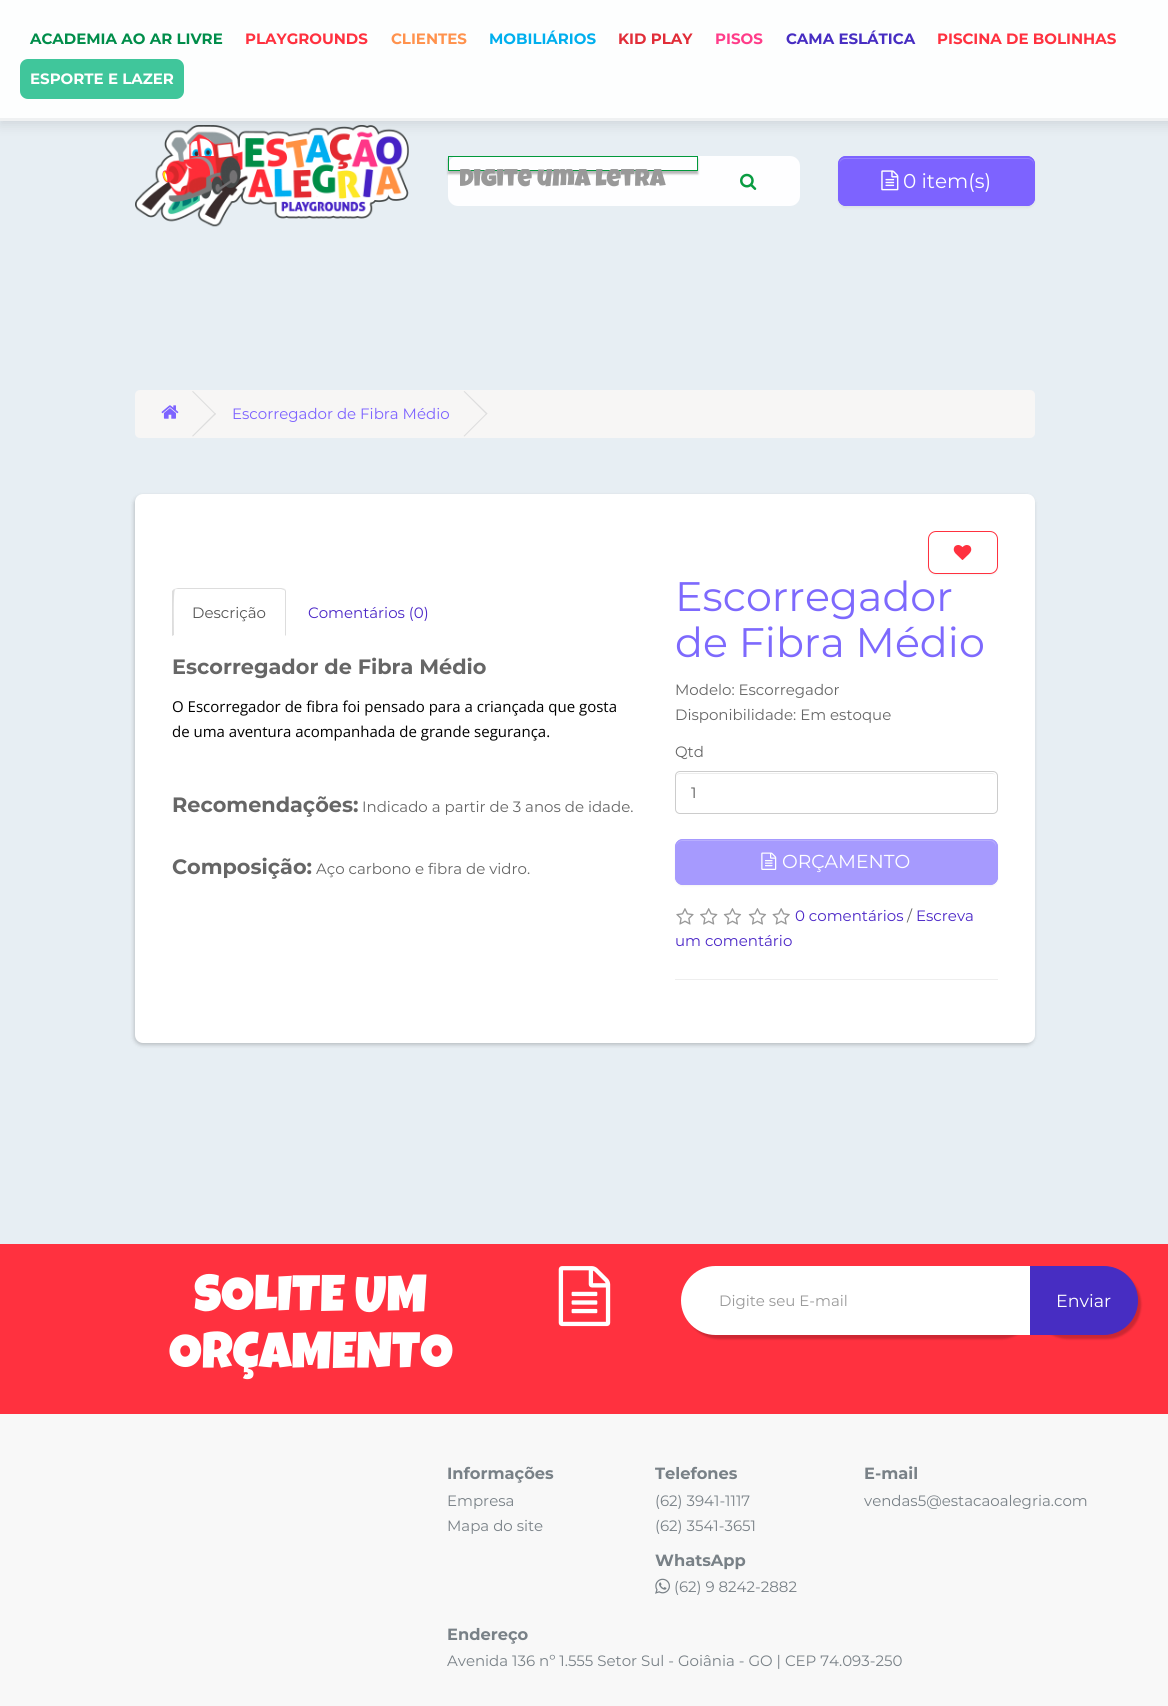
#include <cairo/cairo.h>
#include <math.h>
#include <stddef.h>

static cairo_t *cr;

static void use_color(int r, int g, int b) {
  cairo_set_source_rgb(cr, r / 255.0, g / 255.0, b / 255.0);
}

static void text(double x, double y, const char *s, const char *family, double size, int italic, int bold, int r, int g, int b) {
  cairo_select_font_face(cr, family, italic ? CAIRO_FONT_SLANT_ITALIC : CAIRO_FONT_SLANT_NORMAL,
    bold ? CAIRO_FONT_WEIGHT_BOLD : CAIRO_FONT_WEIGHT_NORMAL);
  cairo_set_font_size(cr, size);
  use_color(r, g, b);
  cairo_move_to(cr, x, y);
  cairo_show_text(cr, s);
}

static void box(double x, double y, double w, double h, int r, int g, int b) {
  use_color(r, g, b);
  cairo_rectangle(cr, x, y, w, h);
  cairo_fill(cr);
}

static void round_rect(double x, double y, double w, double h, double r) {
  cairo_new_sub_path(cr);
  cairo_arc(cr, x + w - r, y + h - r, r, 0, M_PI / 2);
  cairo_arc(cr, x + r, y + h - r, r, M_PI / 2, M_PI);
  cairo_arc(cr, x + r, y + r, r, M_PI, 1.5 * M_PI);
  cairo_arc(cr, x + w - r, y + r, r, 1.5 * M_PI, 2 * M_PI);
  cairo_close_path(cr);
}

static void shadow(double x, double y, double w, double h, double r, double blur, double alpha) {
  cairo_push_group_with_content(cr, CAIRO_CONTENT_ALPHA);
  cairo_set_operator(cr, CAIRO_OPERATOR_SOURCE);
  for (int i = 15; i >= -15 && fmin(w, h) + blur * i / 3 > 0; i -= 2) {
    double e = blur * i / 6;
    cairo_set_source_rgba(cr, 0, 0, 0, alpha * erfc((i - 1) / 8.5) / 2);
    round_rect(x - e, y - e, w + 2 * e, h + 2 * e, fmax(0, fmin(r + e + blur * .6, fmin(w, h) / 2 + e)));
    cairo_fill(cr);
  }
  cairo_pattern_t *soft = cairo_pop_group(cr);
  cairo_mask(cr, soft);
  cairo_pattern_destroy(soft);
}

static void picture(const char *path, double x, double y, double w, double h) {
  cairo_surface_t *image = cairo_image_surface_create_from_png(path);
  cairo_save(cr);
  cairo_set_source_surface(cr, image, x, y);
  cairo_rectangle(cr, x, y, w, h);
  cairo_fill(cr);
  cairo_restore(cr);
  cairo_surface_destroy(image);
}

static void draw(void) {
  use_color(231, 238, 243);
  cairo_paint(cr);
  picture("img_01.png", 135, 125, 274, 102);
  use_color(0, 0, 0);
  shadow(0, 0, 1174, 125, 0, 6, 0.1);
  box(0, 0, 1168, 118, 253, 254, 254);
  box(0, 118, 1168, 3, 239, 241, 242);
  use_color(64, 198, 155);
  round_rect(20, 59, 164, 40, 8);
  cairo_fill(cr);
  use_color(254, 254, 255);
  round_rect(448, 156, 352, 50, 10);
  cairo_fill(cr);
  cairo_save(cr);
  cairo_set_fill_rule(cr, CAIRO_FILL_RULE_EVEN_ODD);
  cairo_new_path(cr);
  cairo_move_to(cr, 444, 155);
  cairo_line_to(cr, 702, 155);
  cairo_line_to(cr, 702, 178);
  cairo_line_to(cr, 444, 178);
  cairo_close_path(cr);
  cairo_move_to(cr, 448, 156);
  cairo_line_to(cr, 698, 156);
  cairo_line_to(cr, 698, 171);
  cairo_line_to(cr, 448, 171);
  cairo_close_path(cr);
  cairo_clip(cr);
  use_color(0, 0, 0);
  shadow(448, 159, 250, 15, 0, 1, 0.28);
  cairo_restore(cr);
  cairo_rectangle(cr, 448.5, 156.5, 249, 14);
  use_color(1, 153, 59);
  cairo_set_line_width(cr, 1);
  cairo_stroke(cr);
  picture("img_02.png", 740, 173, 17, 17);
  use_color(0, 0, 0);
  shadow(838, 158, 197, 50, 8, 1, 0.05);
  use_color(125, 99, 255);
  round_rect(838, 156, 197, 50, 8);
  cairo_fill(cr);
  use_color(151, 130, 255);
  cairo_new_path(cr);
  cairo_move_to(cr, 845, 159);
  cairo_line_to(cr, 1028, 159);
  cairo_curve_to(cr, 1031, 159, 1034, 162, 1034, 165);
  cairo_line_to(cr, 1034, 164);
  cairo_curve_to(cr, 1034, 161, 1031, 158, 1028, 158);
  cairo_line_to(cr, 845, 158);
  cairo_curve_to(cr, 842, 158, 839, 161, 839, 164);
  cairo_line_to(cr, 839, 165);
  cairo_curve_to(cr, 839, 162, 842, 159, 845, 159);
  cairo_close_path(cr);
  cairo_fill(cr);
  round_rect(838.5, 156.5, 196, 49, 7.5);
  use_color(125, 99, 255);
  cairo_stroke(cr);
  picture("img_03.png", 881, 170, 18, 21);
  use_color(247, 246, 245);
  round_rect(135, 390, 900, 48, 5);
  cairo_fill(cr);
  picture("img_04.png", 161, 405, 18, 14);
  use_color(221, 221, 221);
  cairo_new_path(cr);
  cairo_move_to(cr, 192, 391.5);
  cairo_line_to(cr, 193, 391);
  cairo_line_to(cr, 216, 414);
  cairo_line_to(cr, 215, 414.5);
  cairo_close_path(cr);
  cairo_fill(cr);
  cairo_new_path(cr);
  cairo_move_to(cr, 192, 436);
  cairo_line_to(cr, 215, 413);
  cairo_line_to(cr, 216, 414);
  cairo_line_to(cr, 193, 436.5);
  cairo_close_path(cr);
  cairo_fill(cr);
  cairo_new_path(cr);
  cairo_move_to(cr, 463.5, 391.5);
  cairo_line_to(cr, 464.5, 391);
  cairo_line_to(cr, 487.5, 413.5);
  cairo_line_to(cr, 486.5, 414.5);
  cairo_close_path(cr);
  cairo_fill(cr);
  cairo_new_path(cr);
  cairo_move_to(cr, 463.5, 436);
  cairo_line_to(cr, 486.5, 413);
  cairo_line_to(cr, 487.5, 413.5);
  cairo_line_to(cr, 464.5, 436.5);
  cairo_close_path(cr);
  cairo_fill(cr);
  use_color(0, 0, 0);
  shadow(134, 496, 900, 549, 8, 2, 0.2);
  use_color(255, 255, 255);
  round_rect(135, 494, 900, 549, 8);
  cairo_fill(cr);
  use_color(221, 221, 221);
  cairo_new_path(cr);
  cairo_move_to(cr, 178, 588);
  cairo_line_to(cr, 174, 589);
  cairo_line_to(cr, 175, 590);
  cairo_curve_to(cr, 175, 589, 176, 589, 178, 589);
  cairo_line_to(cr, 281, 589);
  cairo_line_to(cr, 284, 590);
  cairo_line_to(cr, 285, 589);
  cairo_line_to(cr, 281, 588);
  cairo_close_path(cr);
  cairo_fill(cr);
  cairo_new_path(cr);
  cairo_move_to(cr, 286, 636);
  cairo_line_to(cr, 286, 591);
  cairo_line_to(cr, 285, 589);
  cairo_line_to(cr, 284, 590);
  cairo_line_to(cr, 285, 591);
  cairo_line_to(cr, 285, 635);
  cairo_close_path(cr);
  cairo_fill(cr);
  cairo_new_path(cr);
  cairo_move_to(cr, 172, 591);
  cairo_line_to(cr, 174, 589);
  cairo_line_to(cr, 175, 590);
  cairo_curve_to(cr, 173, 591, 174, 629, 174, 635);
  cairo_line_to(cr, 172, 636);
  cairo_close_path(cr);
  cairo_fill(cr);
  use_color(0, 0, 0);
  shadow(928, 533, 70, 42, 8, 1, 0.05);
  use_color(255, 255, 255);
  round_rect(928.5, 531.5, 69, 42, 7.5);
  cairo_fill_preserve(cr);
  use_color(255, 49, 63);
  cairo_stroke(cr);
  picture("img_05.png", 953, 545, 19, 15);
  use_color(236, 236, 236);
  cairo_new_path(cr);
  cairo_move_to(cr, 680, 774);
  cairo_line_to(cr, 992, 774);
  cairo_curve_to(cr, 995, 774, 996, 775, 996, 778);
  cairo_line_to(cr, 996, 777);
  cairo_curve_to(cr, 996, 775, 994, 773, 992, 773);
  cairo_line_to(cr, 680, 773);
  cairo_curve_to(cr, 678, 773, 676, 775, 676, 777);
  cairo_line_to(cr, 676, 778);
  cairo_curve_to(cr, 676, 775, 678, 774, 680, 774);
  cairo_close_path(cr);
  cairo_fill(cr);
  round_rect(675.5, 771.5, 322, 42, 4.5);
  use_color(204, 204, 204);
  cairo_stroke(cr);
  use_color(0, 0, 0);
  shadow(675, 840, 323, 46, 8, 1, 0.05);
  use_color(166, 154, 254);
  round_rect(675, 839, 323, 46, 8);
  cairo_fill(cr);
  use_color(184, 174, 254);
  cairo_new_path(cr);
  cairo_move_to(cr, 682, 841);
  cairo_line_to(cr, 990, 841);
  cairo_curve_to(cr, 993, 841, 996, 844, 996, 848);
  cairo_curve_to(cr, 996, 844, 995, 840, 990, 840);
  cairo_line_to(cr, 681, 840);
  cairo_curve_to(cr, 677, 841, 676, 845, 676, 848);
  cairo_curve_to(cr, 676, 844, 679, 841, 682, 841);
  cairo_close_path(cr);
  cairo_fill(cr);
  round_rect(675.5, 839.5, 322, 45, 7.5);
  use_color(166, 154, 254);
  cairo_stroke(cr);
  picture("img_06.png", 761, 852, 16, 18);
  picture("img_07.png", 676, 908, 18, 17);
  picture("img_08.png", 700, 908, 18, 17);
  picture("img_09.png", 723, 908, 19, 17);
  picture("img_09.png", 748, 908, 19, 17);
  picture("img_10.png", 772, 908, 18, 17);
  box(675, 979, 323, 1, 238, 238, 238);
  box(0, 1244, 1168, 170, 255, 49, 63);
  picture("img_11.png", 558, 1266, 53, 61);
  use_color(0, 0, 0);
  shadow(685, 1270, 350, 69, 34.5, 1, 0.2);
  use_color(255, 255, 255);
  cairo_new_path(cr);
  cairo_move_to(cr, 715.5, 1266);
  cairo_line_to(cr, 1031, 1266);
  cairo_line_to(cr, 1031, 1335);
  cairo_line_to(cr, 715.5, 1335);
  cairo_curve_to(cr, 696.5, 1335, 681, 1319.5, 681, 1300.5);
  cairo_curve_to(cr, 681, 1281.5, 696.5, 1266, 715.5, 1266);
  cairo_close_path(cr);
  cairo_fill(cr);
  use_color(0, 0, 0);
  shadow(1034, 1270, 107, 69, 34.5, 1, 0.2);
  use_color(71, 45, 194);
  cairo_new_path(cr);
  cairo_move_to(cr, 1030.5, 1266.5);
  cairo_line_to(cr, 1103.5, 1266.5);
  cairo_curve_to(cr, 1122.5, 1266.5, 1137.5, 1281.5, 1137.5, 1300.5);
  cairo_curve_to(cr, 1137.5, 1319.5, 1122.5, 1334.5, 1103.5, 1334.5);
  cairo_line_to(cr, 1030.5, 1334.5);
  cairo_close_path(cr);
  cairo_fill_preserve(cr);
  cairo_stroke(cr);
  box(0, 1414, 1168, 292, 248, 248, 248);
  picture("img_12.png", 655, 1578, 15, 16);
  text(30, 44, "ACADEMIA AO AR LIVRE", "Montserrat", 15, 0, 1, 0, 141, 74);
  text(245, 44, "PLAYGROUNDS", "Montserrat", 15, 0, 1, 255, 49, 63);
  text(391, 44, "CLIENTES", "Montserrat", 15, 0, 1, 255, 146, 77);
  text(489, 44, "MOBILIÁRIOS", "Montserrat", 15, 0, 1, 0, 175, 238);
  text(618, 44, "KID PLAY", "Montserrat", 15, 0, 1, 225, 45, 56);
  text(715, 44, "PISOS", "Montserrat", 15, 0, 1, 255, 60, 137);
  text(786, 44, "CAMA ESLÁTICA", "Montserrat", 15, 0, 1, 71, 45, 194);
  text(937, 44, "PISCINA DE BOLINHAS", "Montserrat", 15, 0, 1, 255, 49, 63);
  text(30, 84, "ESPORTE E LAZER", "Montserrat", 15, 0, 1, 255, 255, 255);
  cairo_save(cr);
  cairo_rectangle(cr, 460, 169, 225, 25);
  cairo_clip(cr);
  text(459, 186, "Digite uma letra", "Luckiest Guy", 25, 0, 0, 153, 153, 153);
  cairo_restore(cr);
  text(903, 188, "0 item(s)", "Montserrat", 20, 0, 0, 255, 255, 255);
  text(232, 419, "Escorregador de Fibra Médio", "Montserrat", 15, 0, 0, 125, 99, 255);
  text(192, 618, "Descrição", "Montserrat", 15, 0, 0, 85, 85, 85);
  text(308, 618, "Comentários (0)", "Montserrat", 15, 0, 0, 75, 39, 199);
  text(172, 674, "Escorregador de Fibra Médio", "Montserrat", 20.8, 0, 1, 102, 102, 102);
  text(172, 712, "O Escorregador de fibra foi pensado para a criançada que gosta", "Open Sans", 15, 0, 0, 0, 0, 0);
  text(172, 737, "de uma aventura acompanhada de grande segurança.", "Open Sans", 15, 0, 0, 0, 0, 0);
  text(172, 812, "Recomendações:", "Montserrat", 20.8, 0, 1, 102, 102, 102);
  text(362, 812, "Indicado a partir de 3 anos de idade.", "Montserrat", 15, 0, 0, 102, 102, 102);
  text(172, 874, "Composição:", "Montserrat", 20.8, 0, 1, 102, 102, 102);
  text(316, 874, "Aço carbono e fibra de vidro.", "Montserrat", 15, 0, 0, 102, 102, 102);
  text(675, 611, "Escorregador", "Montserrat", 41.25, 0, 0, 125, 105, 253);
  text(675, 657, "de Fibra Médio", "Montserrat", 41.25, 0, 0, 125, 105, 253);
  text(675, 695, "Modelo: Escorregador", "Montserrat", 15, 0, 0, 102, 102, 102);
  text(675, 720, "Disponibilidade: Em estoque", "Montserrat", 15, 0, 0, 102, 102, 102);
  text(675, 757, "Qtd", "Montserrat", 15, 0, 0, 102, 102, 102);
  text(691, 798, "1", "Montserrat", 15, 0, 0, 85, 85, 85);
  text(782, 868, "ORÇAMENTO", "Montserrat", 18.75, 0, 0, 255, 255, 255);
  text(795, 921, "0 comentários", "Montserrat", 15, 0, 0, 75, 39, 199);
  text(907, 921, "/", "Montserrat", 15, 0, 0, 102, 102, 102);
  text(916, 921, "Escreva", "Montserrat", 15, 0, 0, 75, 39, 199);
  text(675, 946, "um comentário", "Montserrat", 15, 0, 0, 75, 39, 199);
  text(194, 1311, "SOLITE UM", "Luckiest Guy", 51.25, 0, 0, 255, 255, 255);
  text(169, 1368, "ORÇAMENTO", "Luckiest Guy", 51.25, 0, 0, 255, 255, 255);
  text(719, 1306, "Digite seu E-mail", "Montserrat", 15, 0, 0, 153, 153, 153);
  text(1056, 1307, "Enviar", "Montserrat", 17.5, 0, 0, 255, 255, 255);
  text(447, 1479, "Informações", "Montserrat", 16.25, 0, 1, 121, 129, 135);
  text(447, 1506, "Empresa", "Montserrat", 15, 0, 0, 121, 129, 135);
  text(447, 1531, "Mapa do site", "Montserrat", 15, 0, 0, 121, 129, 135);
  text(655, 1479, "Telefones", "Montserrat", 16.25, 0, 1, 121, 129, 135);
  text(655, 1506, "(62) 3941-1117", "Montserrat", 15, 0, 0, 121, 129, 135);
  text(655, 1531, "(62) 3541-3651", "Montserrat", 15, 0, 0, 121, 129, 135);
  text(655, 1566, "WhatsApp", "Montserrat", 16.25, 0, 1, 121, 129, 135);
  text(674, 1592, "(62) 9 8242-2882", "Montserrat", 15, 0, 0, 121, 129, 135);
  text(864, 1479, "E-mail", "Montserrat", 16.25, 0, 1, 121, 129, 135);
  text(864, 1506, "vendas5@estacaoalegria.com", "Montserrat", 15, 0, 0, 121, 129, 135);
  text(447, 1640, "Endereço", "Montserrat", 16.25, 0, 1, 121, 129, 135);
  text(447, 1666, "Avenida 136 nº 1.555 Setor Sul - Goiânia - GO | CEP 74.093-250", "Montserrat", 15, 0, 0, 121, 129, 135);
}

int main(void) {
  cairo_surface_t *surface = cairo_image_surface_create(CAIRO_FORMAT_RGB24, 1168, 1706);
  cr = cairo_create(surface);
  cairo_font_options_t *options = cairo_font_options_create();
  cairo_font_options_set_hint_metrics(options, CAIRO_HINT_METRICS_OFF);
  cairo_font_options_set_hint_style(options, CAIRO_HINT_STYLE_NONE);
  cairo_set_font_options(cr, options);
  cairo_set_miter_limit(cr, 4);
  draw();
  cairo_surface_write_to_png(surface, "out.png");
  cairo_font_options_destroy(options);
  cairo_destroy(cr);
  cairo_surface_destroy(surface);
  return 0;
}
